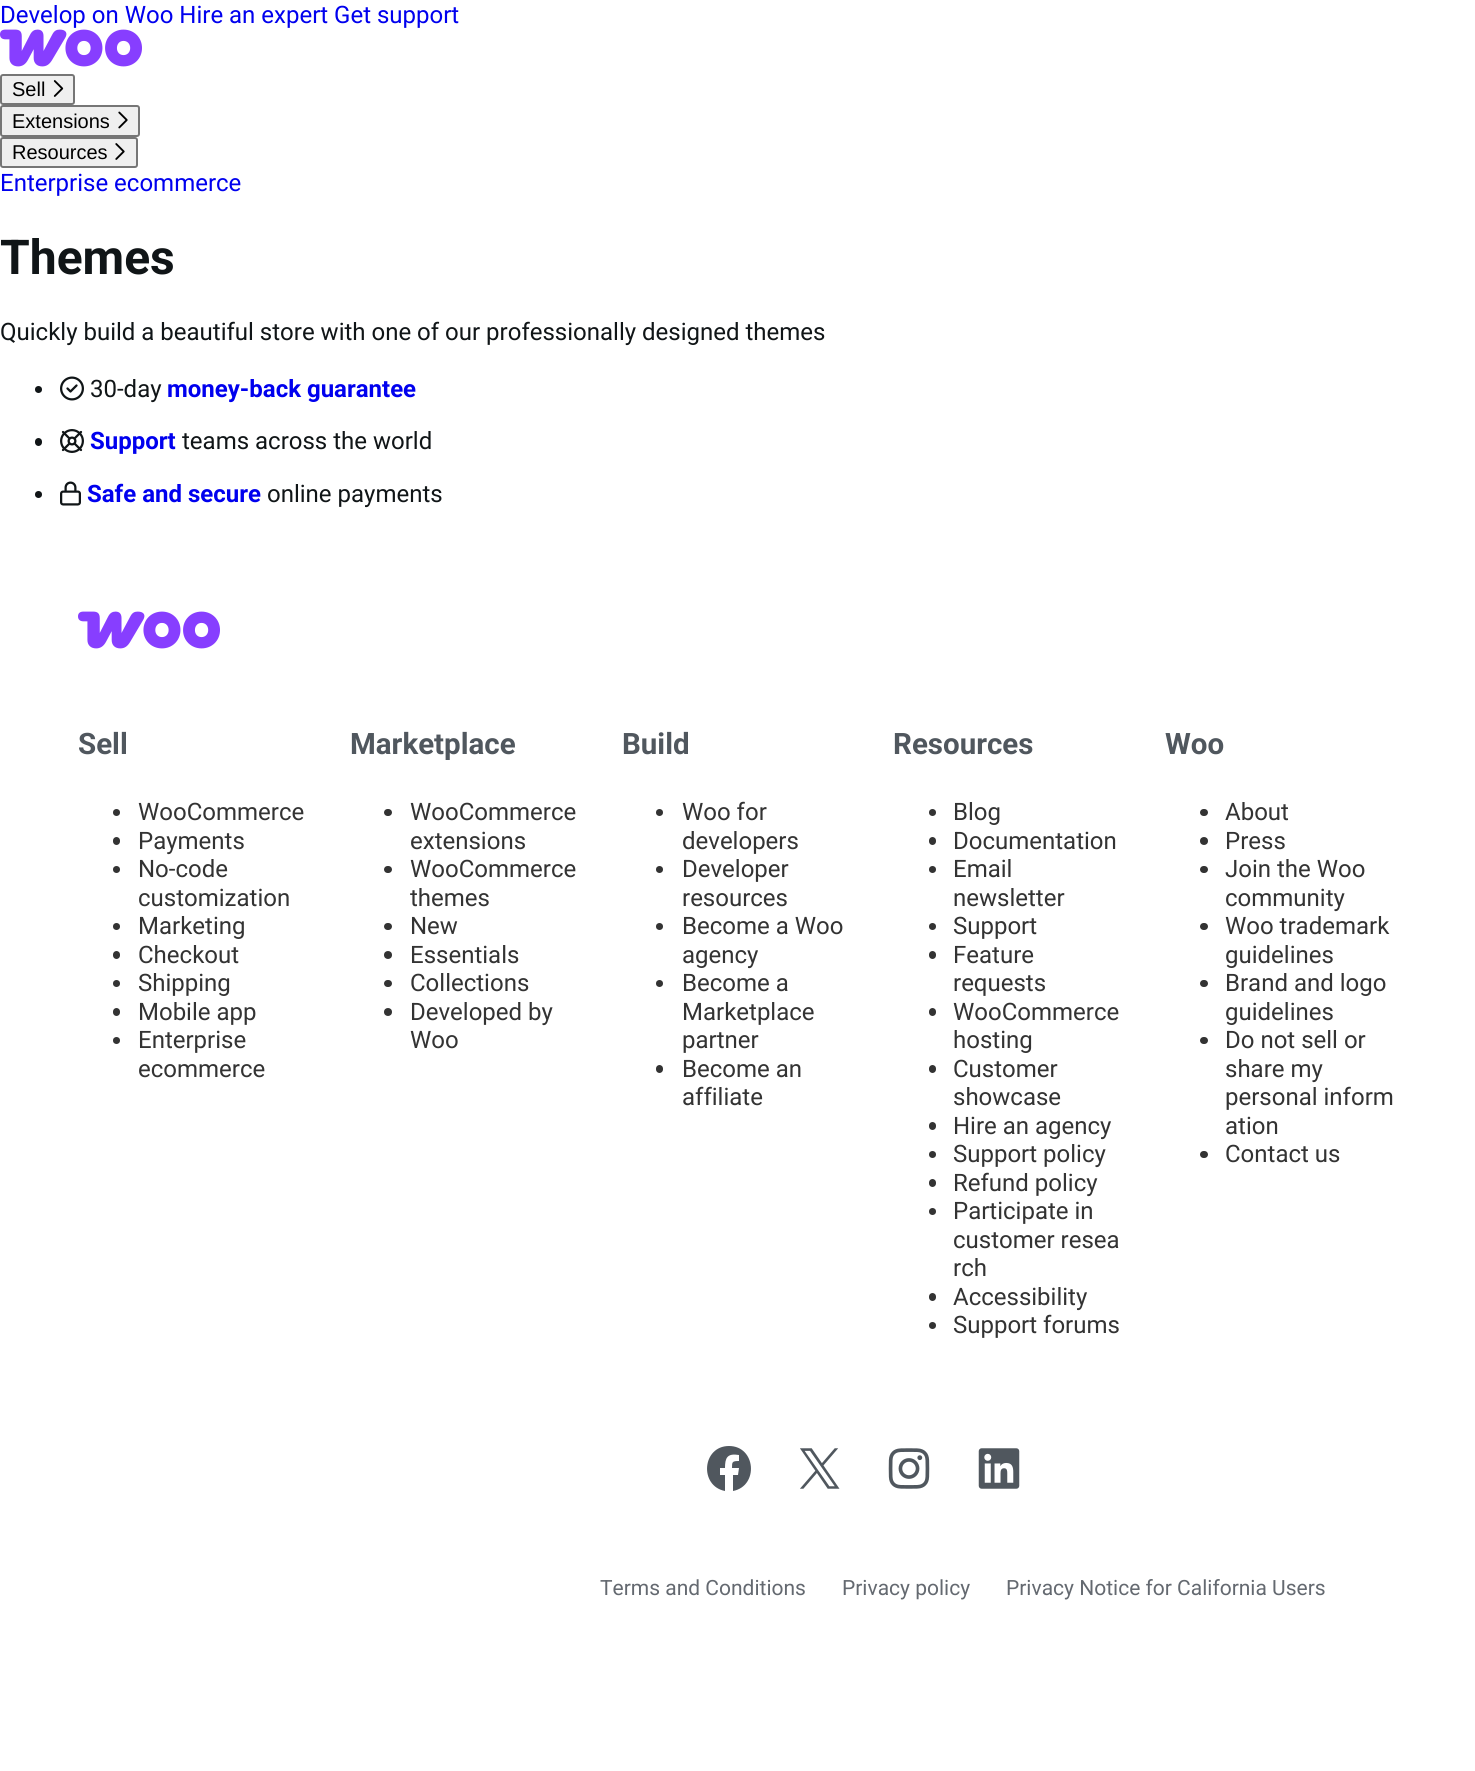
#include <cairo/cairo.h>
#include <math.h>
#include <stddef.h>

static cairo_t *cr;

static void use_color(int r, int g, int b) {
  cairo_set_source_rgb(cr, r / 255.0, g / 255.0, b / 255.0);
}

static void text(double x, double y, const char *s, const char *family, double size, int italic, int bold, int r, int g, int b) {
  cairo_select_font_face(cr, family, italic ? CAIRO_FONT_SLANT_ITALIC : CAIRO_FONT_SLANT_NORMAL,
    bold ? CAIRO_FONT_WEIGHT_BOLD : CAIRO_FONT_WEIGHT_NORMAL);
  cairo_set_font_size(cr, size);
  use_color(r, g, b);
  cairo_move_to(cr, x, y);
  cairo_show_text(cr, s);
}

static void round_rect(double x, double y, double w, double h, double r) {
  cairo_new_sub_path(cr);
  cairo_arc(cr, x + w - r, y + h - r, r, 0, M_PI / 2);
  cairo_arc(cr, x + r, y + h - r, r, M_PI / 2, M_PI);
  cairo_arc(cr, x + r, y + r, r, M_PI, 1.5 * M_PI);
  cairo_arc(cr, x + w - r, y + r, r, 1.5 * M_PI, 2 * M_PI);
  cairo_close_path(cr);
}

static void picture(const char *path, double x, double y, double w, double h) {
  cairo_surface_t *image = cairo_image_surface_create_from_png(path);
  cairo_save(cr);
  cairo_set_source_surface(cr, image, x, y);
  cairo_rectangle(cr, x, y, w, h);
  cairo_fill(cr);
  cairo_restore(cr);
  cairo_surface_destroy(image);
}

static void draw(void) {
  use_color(255, 255, 255);
  cairo_paint(cr);
  picture("img_01.png", 0, 29, 142, 38);
  use_color(239, 239, 239);
  round_rect(1, 75, 73, 29, 2);
  cairo_fill_preserve(cr);
  use_color(118, 118, 118);
  cairo_stroke(cr);
  picture("img_02.png", 53, 80, 11, 17);
  use_color(239, 239, 239);
  round_rect(1, 106, 138, 30, 2);
  cairo_fill_preserve(cr);
  use_color(118, 118, 118);
  cairo_stroke(cr);
  picture("img_03.png", 118, 111, 10, 18);
  use_color(239, 239, 239);
  round_rect(1, 138, 136, 29, 2);
  cairo_fill_preserve(cr);
  use_color(118, 118, 118);
  cairo_stroke(cr);
  picture("img_04.png", 115, 143, 10, 17);
  use_color(16, 21, 23);
  cairo_arc(cr, 38.5, 389.5, 3.5, 0, 2 * M_PI);
  cairo_fill(cr);
  picture("img_05.png", 60, 376, 24, 25);
  round_rect(35, 438, 7, 8, 3.5);
  cairo_fill(cr);
  picture("img_06.png", 60, 429, 24, 24);
  cairo_arc(cr, 38.5, 494.5, 3.5, 0, 2 * M_PI);
  cairo_fill(cr);
  picture("img_07.png", 60, 481, 21, 25);
  picture("img_01.png", 78, 611, 142, 38);
  use_color(51, 51, 51);
  cairo_arc(cr, 116.5, 812.5, 3.5, 0, 2 * M_PI);
  cairo_fill(cr);
  round_rect(113, 837, 7, 8, 3.5);
  cairo_fill(cr);
  cairo_arc(cr, 116.5, 869.5, 3.5, 0, 2 * M_PI);
  cairo_fill(cr);
  cairo_arc(cr, 116.5, 926.5, 3.5, 0, 2 * M_PI);
  cairo_fill(cr);
  round_rect(113, 951, 7, 8, 3.5);
  cairo_fill(cr);
  cairo_arc(cr, 116.5, 983.5, 3.5, 0, 2 * M_PI);
  cairo_fill(cr);
  round_rect(113, 1008, 7, 8, 3.5);
  cairo_fill(cr);
  cairo_arc(cr, 116.5, 1040.5, 3.5, 0, 2 * M_PI);
  cairo_fill(cr);
  round_rect(384, 809, 8, 7, 3.5);
  cairo_fill(cr);
  round_rect(384, 866, 8, 7, 3.5);
  cairo_fill(cr);
  round_rect(384, 923, 8, 7, 3.5);
  cairo_fill(cr);
  cairo_arc(cr, 388, 955, 4, 0, 2 * M_PI);
  cairo_fill(cr);
  round_rect(384, 980, 8, 7, 3.5);
  cairo_fill(cr);
  cairo_arc(cr, 388, 1012, 4, 0, 2 * M_PI);
  cairo_fill(cr);
  cairo_arc(cr, 659.5, 812.5, 3.5, 0, 2 * M_PI);
  cairo_fill(cr);
  cairo_arc(cr, 659.5, 869.5, 3.5, 0, 2 * M_PI);
  cairo_fill(cr);
  cairo_arc(cr, 659.5, 926.5, 3.5, 0, 2 * M_PI);
  cairo_fill(cr);
  cairo_arc(cr, 659.5, 983.5, 3.5, 0, 2 * M_PI);
  cairo_fill(cr);
  round_rect(656, 1065, 7, 8, 3.5);
  cairo_fill(cr);
  cairo_arc(cr, 932.5, 812.5, 3.5, 0, 2 * M_PI);
  cairo_fill(cr);
  round_rect(929, 837, 7, 8, 3.5);
  cairo_fill(cr);
  cairo_arc(cr, 932.5, 869.5, 3.5, 0, 2 * M_PI);
  cairo_fill(cr);
  cairo_arc(cr, 932.5, 926.5, 3.5, 0, 2 * M_PI);
  cairo_fill(cr);
  round_rect(929, 951, 7, 8, 3.5);
  cairo_fill(cr);
  round_rect(929, 1008, 7, 8, 3.5);
  cairo_fill(cr);
  round_rect(929, 1065, 7, 8, 3.5);
  cairo_fill(cr);
  round_rect(929, 1122, 7, 8, 3.5);
  cairo_fill(cr);
  cairo_arc(cr, 932.5, 1154.5, 3.5, 0, 2 * M_PI);
  cairo_fill(cr);
  round_rect(929, 1179, 7, 8, 3.5);
  cairo_fill(cr);
  cairo_arc(cr, 932.5, 1211.5, 3.5, 0, 2 * M_PI);
  cairo_fill(cr);
  round_rect(929, 1293, 7, 8, 3.5);
  cairo_fill(cr);
  cairo_arc(cr, 932.5, 1325.5, 3.5, 0, 2 * M_PI);
  cairo_fill(cr);
  round_rect(1200, 809, 8, 7, 3.5);
  cairo_fill(cr);
  cairo_arc(cr, 1204, 841, 4, 0, 2 * M_PI);
  cairo_fill(cr);
  round_rect(1200, 866, 8, 7, 3.5);
  cairo_fill(cr);
  round_rect(1200, 923, 8, 7, 3.5);
  cairo_fill(cr);
  round_rect(1200, 980, 8, 7, 3.5);
  cairo_fill(cr);
  round_rect(1200, 1037, 8, 7, 3.5);
  cairo_fill(cr);
  round_rect(1200, 1151, 8, 7, 3.5);
  cairo_fill(cr);
  use_color(80, 87, 94);
  cairo_new_path(cr);
  cairo_move_to(cr, 729, 1446);
  cairo_curve_to(cr, 702, 1446, 699, 1486, 725, 1491);
  cairo_line_to(cr, 725, 1475);
  cairo_line_to(cr, 720, 1475);
  cairo_line_to(cr, 720, 1468);
  cairo_line_to(cr, 725, 1468);
  cairo_curve_to(cr, 725, 1458, 727, 1453, 739, 1455);
  cairo_line_to(cr, 739, 1461);
  cairo_curve_to(cr, 732, 1461, 732, 1462, 732, 1468);
  cairo_line_to(cr, 739, 1468);
  cairo_line_to(cr, 738, 1475);
  cairo_line_to(cr, 733, 1475);
  cairo_line_to(cr, 733, 1491);
  cairo_curve_to(cr, 759, 1486, 756, 1446, 729, 1446);
  cairo_close_path(cr);
  cairo_fill(cr);
  picture("img_08.png", 800, 1448, 40, 41);
  picture("img_09.png", 888, 1448, 42, 41);
  picture("img_10.png", 978, 1448, 42, 41);
  text(0, 23, "Develop on Woo Hire an expert Get support", "Roboto", 24, 0, 0, 0, 0, 238);
  text(12, 96, "Sell", "Liberation Sans", 20, 0, 0, 0, 0, 0);
  text(12, 128, "Extensions", "Liberation Sans", 20, 0, 0, 0, 0, 0);
  text(12, 159, "Resources", "Liberation Sans", 20, 0, 0, 0, 0, 0);
  text(0, 191, "Enterprise ecommerce", "Roboto", 24, 0, 0, 0, 0, 238);
  text(0, 274, "Themes", "Roboto", 48, 0, 1, 16, 21, 23);
  text(0, 340, "Quickly build a beautiful store with one of our professionally designed themes", "Roboto", 24, 0, 0, 16, 21, 23);
  text(90, 397, "30-day", "Roboto", 24, 0, 0, 16, 21, 23);
  text(167, 397, "money-back guarantee", "Roboto", 24, 0, 1, 0, 0, 238);
  text(90, 449, "Support", "Roboto", 24, 0, 1, 0, 0, 238);
  text(182, 449, "teams across the world", "Roboto", 24, 0, 0, 16, 21, 23);
  text(87, 502, "Safe and secure", "Roboto", 24, 0, 1, 0, 0, 238);
  text(267, 502, "online payments", "Roboto", 24, 0, 0, 16, 21, 23);
  text(78, 754, "Sell", "Roboto", 29.5, 0, 1, 80, 87, 94);
  text(138, 820, "WooCommerce", "Roboto", 24, 0, 0, 51, 51, 51);
  text(138, 849, "Payments", "Roboto", 24, 0, 0, 51, 51, 51);
  text(138, 877, "No-code", "Roboto", 24, 0, 0, 51, 51, 51);
  text(138, 906, "customization", "Roboto", 24, 0, 0, 51, 51, 51);
  text(138, 934, "Marketing", "Roboto", 24, 0, 0, 51, 51, 51);
  text(138, 963, "Checkout", "Roboto", 24, 0, 0, 51, 51, 51);
  text(138, 991, "Shipping", "Roboto", 24, 0, 0, 51, 51, 51);
  text(138, 1020, "Mobile app", "Roboto", 24, 0, 0, 51, 51, 51);
  text(138, 1048, "Enterprise", "Roboto", 24, 0, 0, 51, 51, 51);
  text(138, 1077, "ecommerce", "Roboto", 24, 0, 0, 51, 51, 51);
  text(350, 754, "Marketplace", "Roboto", 29.5, 0, 1, 80, 87, 94);
  text(410, 820, "WooCommerce", "Roboto", 24, 0, 0, 51, 51, 51);
  text(410, 849, "extensions", "Roboto", 24, 0, 0, 51, 51, 51);
  text(410, 877, "WooCommerce", "Roboto", 24, 0, 0, 51, 51, 51);
  text(410, 906, "themes", "Roboto", 24, 0, 0, 51, 51, 51);
  text(410, 934, "New", "Roboto", 24, 0, 0, 51, 51, 51);
  text(410, 963, "Essentials", "Roboto", 24, 0, 0, 51, 51, 51);
  text(410, 991, "Collections", "Roboto", 24, 0, 0, 51, 51, 51);
  text(410, 1020, "Developed by", "Roboto", 24, 0, 0, 51, 51, 51);
  text(410, 1048, "Woo", "Roboto", 24, 0, 0, 51, 51, 51);
  text(622, 754, "Build", "Roboto", 29.5, 0, 1, 80, 87, 94);
  text(682, 820, "Woo for", "Roboto", 24, 0, 0, 51, 51, 51);
  text(682, 849, "developers", "Roboto", 24, 0, 0, 51, 51, 51);
  text(682, 877, "Developer", "Roboto", 24, 0, 0, 51, 51, 51);
  text(682, 906, "resources", "Roboto", 24, 0, 0, 51, 51, 51);
  text(682, 934, "Become a Woo", "Roboto", 24, 0, 0, 51, 51, 51);
  text(682, 963, "agency", "Roboto", 24, 0, 0, 51, 51, 51);
  text(682, 991, "Become a", "Roboto", 24, 0, 0, 51, 51, 51);
  text(682, 1020, "Marketplace", "Roboto", 24, 0, 0, 51, 51, 51);
  text(682, 1048, "partner", "Roboto", 24, 0, 0, 51, 51, 51);
  text(682, 1077, "Become an", "Roboto", 24, 0, 0, 51, 51, 51);
  text(682, 1105, "affiliate", "Roboto", 24, 0, 0, 51, 51, 51);
  text(893, 754, "Resources", "Roboto", 29.5, 0, 1, 80, 87, 94);
  text(953, 820, "Blog", "Roboto", 24, 0, 0, 51, 51, 51);
  text(953, 849, "Documentation", "Roboto", 24, 0, 0, 51, 51, 51);
  text(953, 877, "Email", "Roboto", 24, 0, 0, 51, 51, 51);
  text(953, 906, "newsletter", "Roboto", 24, 0, 0, 51, 51, 51);
  text(953, 934, "Support", "Roboto", 24, 0, 0, 51, 51, 51);
  text(953, 963, "Feature", "Roboto", 24, 0, 0, 51, 51, 51);
  text(953, 991, "requests", "Roboto", 24, 0, 0, 51, 51, 51);
  text(953, 1020, "WooCommerce", "Roboto", 24, 0, 0, 51, 51, 51);
  text(953, 1048, "hosting", "Roboto", 24, 0, 0, 51, 51, 51);
  text(953, 1077, "Customer", "Roboto", 24, 0, 0, 51, 51, 51);
  text(953, 1105, "showcase", "Roboto", 24, 0, 0, 51, 51, 51);
  text(953, 1134, "Hire an agency", "Roboto", 24, 0, 0, 51, 51, 51);
  text(953, 1162, "Support policy", "Roboto", 24, 0, 0, 51, 51, 51);
  text(953, 1191, "Refund policy", "Roboto", 24, 0, 0, 51, 51, 51);
  text(953, 1219, "Participate in", "Roboto", 24, 0, 0, 51, 51, 51);
  text(953, 1248, "customer resea", "Roboto", 24, 0, 0, 51, 51, 51);
  text(953, 1276, "rch", "Roboto", 24, 0, 0, 51, 51, 51);
  text(953, 1305, "Accessibility", "Roboto", 24, 0, 0, 51, 51, 51);
  text(953, 1333, "Support forums", "Roboto", 24, 0, 0, 51, 51, 51);
  text(1165, 754, "Woo", "Roboto", 29.5, 0, 1, 80, 87, 94);
  text(1225, 820, "About", "Roboto", 24, 0, 0, 51, 51, 51);
  text(1225, 849, "Press", "Roboto", 24, 0, 0, 51, 51, 51);
  text(1225, 877, "Join the Woo", "Roboto", 24, 0, 0, 51, 51, 51);
  text(1225, 906, "community", "Roboto", 24, 0, 0, 51, 51, 51);
  text(1225, 934, "Woo trademark", "Roboto", 24, 0, 0, 51, 51, 51);
  text(1225, 963, "guidelines", "Roboto", 24, 0, 0, 51, 51, 51);
  text(1225, 991, "Brand and logo", "Roboto", 24, 0, 0, 51, 51, 51);
  text(1225, 1020, "guidelines", "Roboto", 24, 0, 0, 51, 51, 51);
  text(1225, 1048, "Do not sell or", "Roboto", 24, 0, 0, 51, 51, 51);
  text(1225, 1077, "share my", "Roboto", 24, 0, 0, 51, 51, 51);
  text(1225, 1105, "personal inform", "Roboto", 24, 0, 0, 51, 51, 51);
  text(1225, 1134, "ation", "Roboto", 24, 0, 0, 51, 51, 51);
  text(1225, 1162, "Contact us", "Roboto", 24, 0, 0, 51, 51, 51);
  text(600, 1595, "Terms and Conditions", "Roboto", 21, 0, 0, 100, 105, 112);
  text(842, 1595, "Privacy policy", "Roboto", 21, 0, 0, 100, 105, 112);
  text(1006, 1595, "Privacy Notice for California Users", "Roboto", 21, 0, 0, 100, 105, 112);
}

int main(void) {
  cairo_surface_t *surface = cairo_image_surface_create(CAIRO_FORMAT_RGB24, 1475, 1771);
  cr = cairo_create(surface);
  cairo_font_options_t *options = cairo_font_options_create();
  cairo_font_options_set_hint_metrics(options, CAIRO_HINT_METRICS_OFF);
  cairo_font_options_set_hint_style(options, CAIRO_HINT_STYLE_NONE);
  cairo_set_font_options(cr, options);
  cairo_set_miter_limit(cr, 4);
  draw();
  cairo_surface_write_to_png(surface, "out.png");
  cairo_font_options_destroy(options);
  cairo_destroy(cr);
  cairo_surface_destroy(surface);
  return 0;
}
